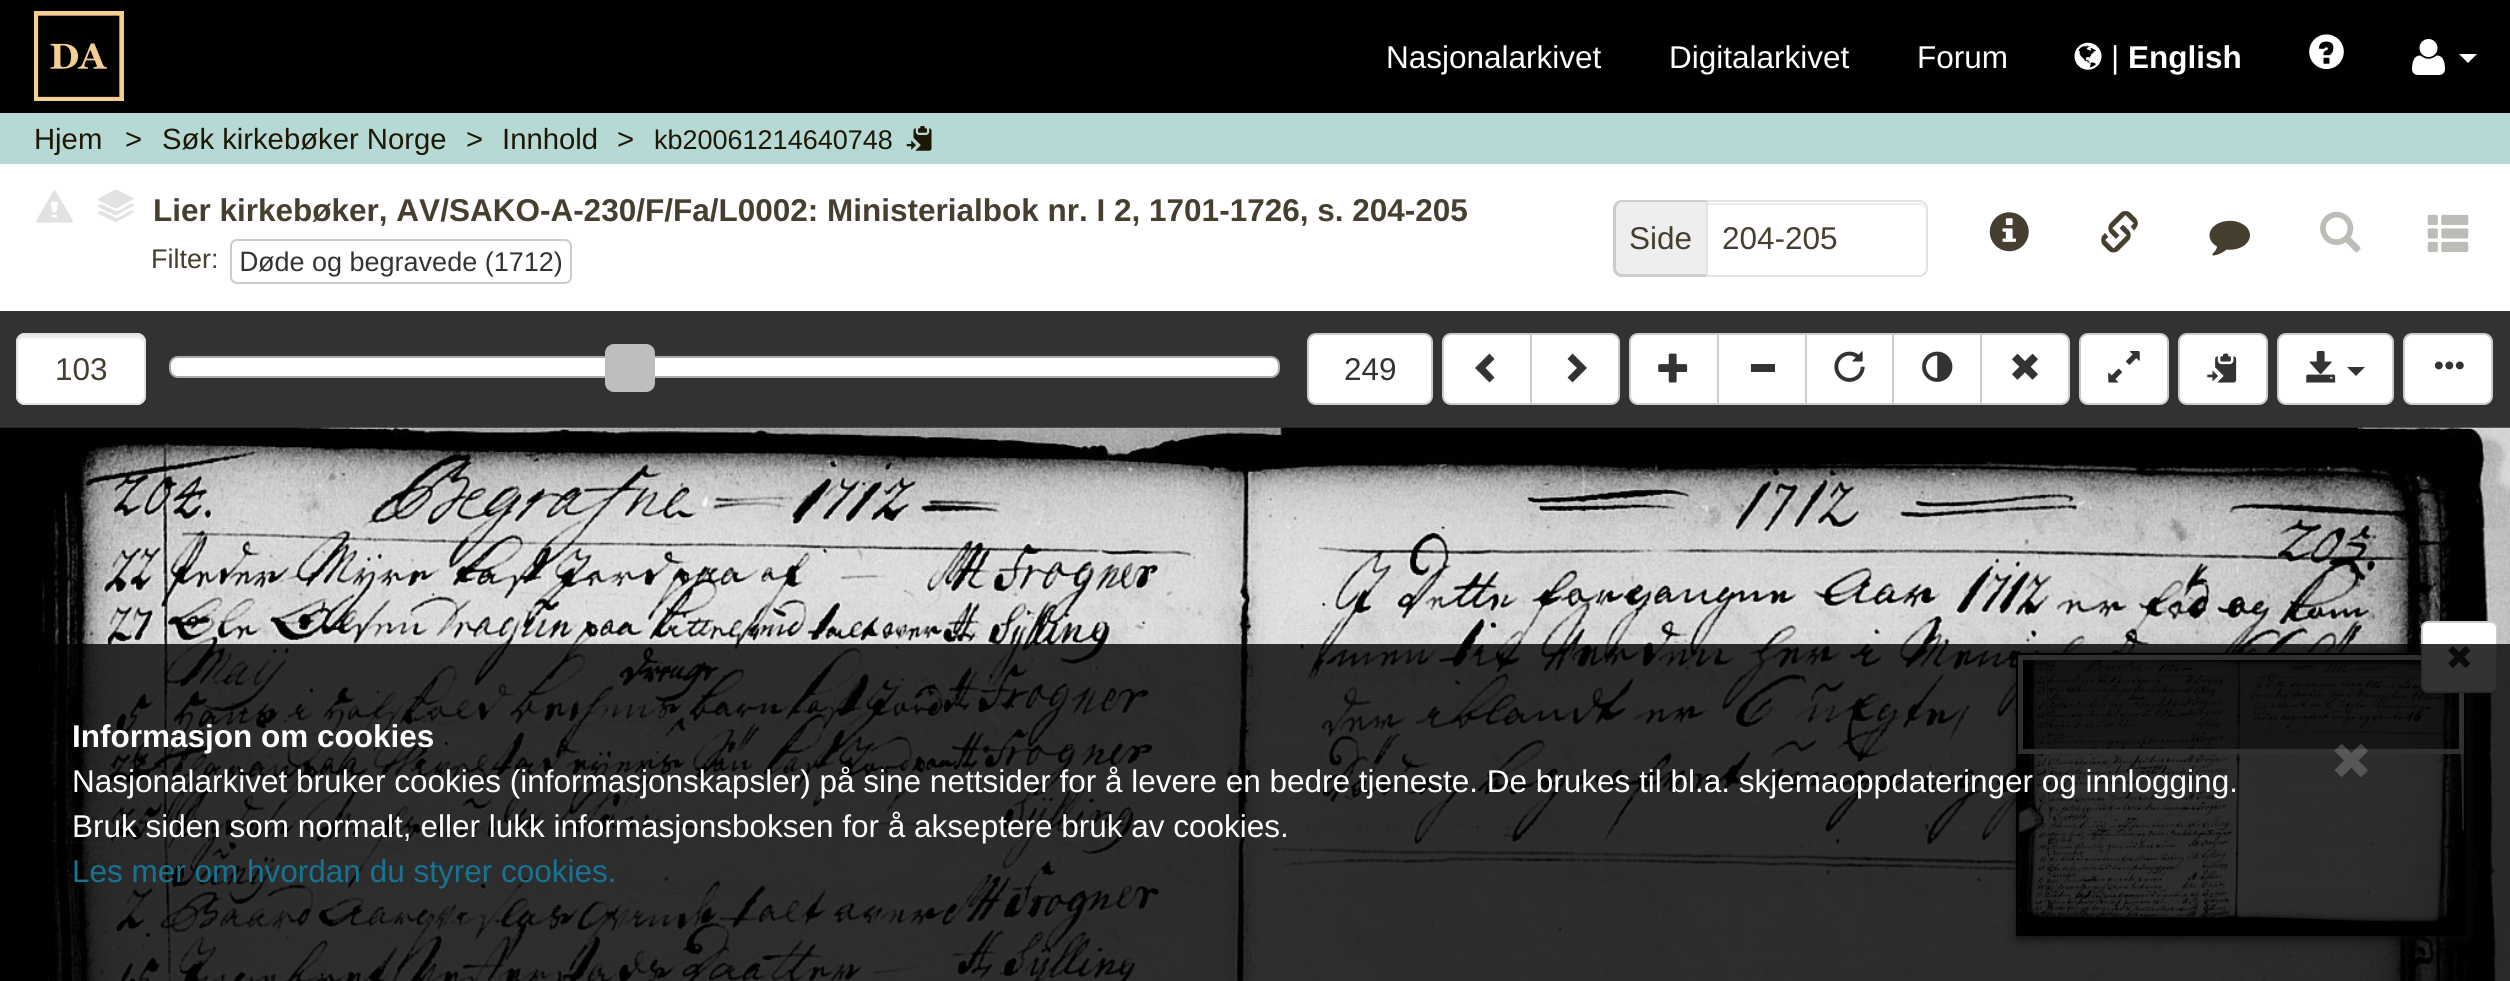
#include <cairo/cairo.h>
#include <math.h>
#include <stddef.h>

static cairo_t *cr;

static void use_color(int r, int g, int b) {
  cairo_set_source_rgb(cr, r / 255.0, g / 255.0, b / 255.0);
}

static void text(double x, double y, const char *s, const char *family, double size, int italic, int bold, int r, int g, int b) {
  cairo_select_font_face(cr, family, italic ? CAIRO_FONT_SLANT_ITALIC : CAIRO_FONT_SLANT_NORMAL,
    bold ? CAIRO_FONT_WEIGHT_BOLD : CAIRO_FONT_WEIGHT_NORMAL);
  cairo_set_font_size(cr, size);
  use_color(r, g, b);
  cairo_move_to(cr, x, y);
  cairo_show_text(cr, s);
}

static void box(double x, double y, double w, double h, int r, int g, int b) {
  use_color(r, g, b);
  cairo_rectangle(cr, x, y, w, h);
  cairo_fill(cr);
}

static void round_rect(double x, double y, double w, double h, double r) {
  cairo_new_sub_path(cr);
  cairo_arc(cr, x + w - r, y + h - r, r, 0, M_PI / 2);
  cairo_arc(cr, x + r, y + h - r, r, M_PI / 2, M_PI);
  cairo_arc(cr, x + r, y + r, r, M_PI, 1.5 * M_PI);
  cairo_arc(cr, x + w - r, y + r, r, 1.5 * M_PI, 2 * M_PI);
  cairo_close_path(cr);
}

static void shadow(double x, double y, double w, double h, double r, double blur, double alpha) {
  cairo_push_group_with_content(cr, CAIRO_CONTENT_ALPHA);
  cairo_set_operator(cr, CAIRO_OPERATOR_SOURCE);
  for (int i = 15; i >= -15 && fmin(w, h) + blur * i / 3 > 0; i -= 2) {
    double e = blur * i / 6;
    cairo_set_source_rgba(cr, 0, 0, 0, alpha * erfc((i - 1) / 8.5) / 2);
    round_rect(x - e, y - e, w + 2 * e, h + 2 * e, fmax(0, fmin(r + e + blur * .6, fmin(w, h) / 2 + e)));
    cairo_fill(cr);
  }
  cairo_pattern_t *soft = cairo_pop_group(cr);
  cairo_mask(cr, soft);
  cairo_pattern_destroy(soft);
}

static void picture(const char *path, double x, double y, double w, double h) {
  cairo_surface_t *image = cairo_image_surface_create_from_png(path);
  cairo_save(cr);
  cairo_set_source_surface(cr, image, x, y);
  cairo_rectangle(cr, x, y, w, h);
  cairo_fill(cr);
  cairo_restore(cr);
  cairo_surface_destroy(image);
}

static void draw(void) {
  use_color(182, 217, 214);
  cairo_paint(cr);
  box(0, 0, 2510, 113, 0, 0, 0);
  picture("img_01.png", 34, 11, 90, 90);
  picture("img_02.png", 2074, 42, 28, 28);
  picture("img_03.png", 2309, 34, 35, 36);
  picture("img_04.png", 2412, 39, 33, 36);
  use_color(255, 255, 255);
  cairo_new_path(cr);
  cairo_move_to(cr, 2459, 54);
  cairo_line_to(cr, 2477, 54);
  cairo_line_to(cr, 2468, 63);
  cairo_close_path(cr);
  cairo_fill(cr);
  picture("img_05.png", 906, 126, 26, 25);
  box(0, 164, 2510, 147, 255, 255, 255);
  picture("img_06.png", 36, 190, 37, 33);
  picture("img_11.png", 97, 210, 37, 12);
  picture("img_10.png", 101, 206, 31, 12);
  picture("img_09.png", 97, 203, 37, 13);
  picture("img_08.png", 101, 199, 31, 13);
  picture("img_07.png", 97, 189, 37, 20);
  round_rect(231, 240, 340, 43, 6);
  use_color(204, 204, 204);
  cairo_stroke(cr);
  use_color(238, 238, 238);
  cairo_new_path(cr);
  cairo_move_to(cr, 1622, 200);
  cairo_line_to(cr, 1706, 200);
  cairo_line_to(cr, 1706, 277);
  cairo_line_to(cr, 1622, 277);
  cairo_curve_to(cr, 1617, 277, 1613, 273, 1613, 268);
  cairo_line_to(cr, 1613, 209);
  cairo_curve_to(cr, 1613, 204, 1617, 200, 1622, 200);
  cairo_close_path(cr);
  cairo_fill(cr);
  use_color(204, 204, 204);
  cairo_set_fill_rule(cr, CAIRO_FILL_RULE_EVEN_ODD);
  cairo_new_path(cr);
  cairo_move_to(cr, 1622, 200);
  cairo_line_to(cr, 1706, 200);
  cairo_line_to(cr, 1706, 277);
  cairo_line_to(cr, 1622, 277);
  cairo_curve_to(cr, 1617, 277, 1613, 273, 1613, 268);
  cairo_line_to(cr, 1613, 209);
  cairo_curve_to(cr, 1613, 204, 1617, 200, 1622, 200);
  cairo_close_path(cr);
  cairo_move_to(cr, 1622, 202);
  cairo_line_to(cr, 1706, 202);
  cairo_line_to(cr, 1706, 274);
  cairo_line_to(cr, 1622, 274);
  cairo_curve_to(cr, 1619, 274, 1616, 271, 1616, 268);
  cairo_line_to(cr, 1616, 209);
  cairo_curve_to(cr, 1616, 206, 1619, 202, 1622, 202);
  cairo_close_path(cr);
  cairo_fill(cr);
  use_color(236, 236, 236);
  cairo_set_fill_rule(cr, CAIRO_FILL_RULE_WINDING);
  cairo_new_path(cr);
  cairo_move_to(cr, 1708, 205);
  cairo_line_to(cr, 1919, 205);
  cairo_curve_to(cr, 1923, 205, 1926, 208, 1926, 212);
  cairo_line_to(cr, 1926, 210);
  cairo_curve_to(cr, 1926, 206, 1923, 203, 1919, 203);
  cairo_line_to(cr, 1708, 203);
  cairo_close_path(cr);
  cairo_fill(cr);
  cairo_new_path(cr);
  cairo_move_to(cr, 1707, 201);
  cairo_line_to(cr, 1919, 201);
  cairo_curve_to(cr, 1923.5, 201, 1927, 204.5, 1927, 209);
  cairo_line_to(cr, 1927, 268);
  cairo_curve_to(cr, 1927, 272.5, 1923.5, 276, 1919, 276);
  cairo_line_to(cr, 1707, 276);
  cairo_close_path(cr);
  use_color(227, 226, 224);
  cairo_stroke(cr);
  picture("img_12.png", 1989, 212, 40, 40);
  picture("img_13.png", 2101, 211, 37, 42);
  picture("img_14.png", 2209, 220, 41, 36);
  picture("img_15.png", 2320, 211, 41, 42);
  picture("img_16.png", 2427, 214, 42, 38);
  box(0, 311, 2510, 117, 51, 50, 49);
  use_color(255, 255, 255);
  round_rect(16, 333, 130, 72, 9);
  cairo_fill(cr);
  use_color(236, 236, 236);
  cairo_new_path(cr);
  cairo_move_to(cr, 25, 338);
  cairo_line_to(cr, 137, 338);
  cairo_curve_to(cr, 141, 338, 144, 341, 144, 344);
  cairo_line_to(cr, 144, 342);
  cairo_curve_to(cr, 144, 338, 141, 335, 137, 335);
  cairo_line_to(cr, 25, 335);
  cairo_curve_to(cr, 21, 335, 18, 338, 18, 342);
  cairo_line_to(cr, 18, 344);
  cairo_curve_to(cr, 18, 341, 21, 338, 25, 338);
  cairo_close_path(cr);
  cairo_fill(cr);
  round_rect(17, 334, 128, 70, 8);
  use_color(227, 226, 224);
  cairo_stroke(cr);
  use_color(255, 255, 255);
  round_rect(170, 357, 1109, 20, 8);
  cairo_fill_preserve(cr);
  use_color(170, 170, 170);
  cairo_stroke(cr);
  use_color(191, 190, 189);
  round_rect(606, 345, 48, 46, 8);
  cairo_fill_preserve(cr);
  cairo_stroke(cr);
  use_color(255, 255, 255);
  round_rect(1308, 334, 124, 70, 8);
  cairo_fill_preserve(cr);
  use_color(204, 204, 204);
  cairo_stroke(cr);
  use_color(255, 255, 255);
  cairo_new_path(cr);
  cairo_move_to(cr, 1451, 334);
  cairo_line_to(cr, 1531, 334);
  cairo_line_to(cr, 1531, 404);
  cairo_line_to(cr, 1451, 404);
  cairo_curve_to(cr, 1446.5, 404, 1443, 400.5, 1443, 396);
  cairo_line_to(cr, 1443, 342);
  cairo_curve_to(cr, 1443, 337.5, 1446.5, 334, 1451, 334);
  cairo_close_path(cr);
  cairo_fill_preserve(cr);
  use_color(204, 204, 204);
  cairo_stroke(cr);
  use_color(51, 51, 51);
  cairo_new_path(cr);
  cairo_move_to(cr, 1494.5, 359);
  cairo_line_to(cr, 1485.5, 368);
  cairo_line_to(cr, 1494.5, 377.5);
  cairo_line_to(cr, 1489.5, 382.5);
  cairo_line_to(cr, 1475, 368);
  cairo_line_to(cr, 1489.5, 353.5);
  cairo_close_path(cr);
  cairo_fill(cr);
  use_color(255, 255, 255);
  cairo_new_path(cr);
  cairo_move_to(cr, 1531, 334);
  cairo_line_to(cr, 1611, 334);
  cairo_curve_to(cr, 1615.5, 334, 1619, 337.5, 1619, 342);
  cairo_line_to(cr, 1619, 396);
  cairo_curve_to(cr, 1619, 400.5, 1615.5, 404, 1611, 404);
  cairo_line_to(cr, 1531, 404);
  cairo_close_path(cr);
  cairo_fill_preserve(cr);
  use_color(204, 204, 204);
  cairo_stroke(cr);
  use_color(51, 51, 51);
  cairo_new_path(cr);
  cairo_move_to(cr, 1587, 368);
  cairo_line_to(cr, 1572.5, 382.5);
  cairo_line_to(cr, 1567.5, 377.5);
  cairo_line_to(cr, 1577, 368);
  cairo_line_to(cr, 1567.5, 359);
  cairo_line_to(cr, 1572.5, 353.5);
  cairo_close_path(cr);
  cairo_fill(cr);
  use_color(255, 255, 255);
  cairo_new_path(cr);
  cairo_move_to(cr, 1638, 334);
  cairo_line_to(cr, 1718, 334);
  cairo_line_to(cr, 1718, 404);
  cairo_line_to(cr, 1638, 404);
  cairo_curve_to(cr, 1633.5, 404, 1630, 400.5, 1630, 396);
  cairo_line_to(cr, 1630, 342);
  cairo_curve_to(cr, 1630, 337.5, 1633.5, 334, 1638, 334);
  cairo_close_path(cr);
  cairo_fill_preserve(cr);
  use_color(204, 204, 204);
  cairo_stroke(cr);
  picture("img_17.png", 1658, 353, 30, 30);
  use_color(255, 255, 255);
  cairo_rectangle(cr, 1718, 334, 88, 70);
  cairo_fill_preserve(cr);
  use_color(204, 204, 204);
  cairo_stroke(cr);
  box(1751, 364, 24, 8, 51, 51, 51);
  box(1807, 335, 85, 68, 255, 255, 255);
  cairo_rectangle(cr, 1806, 334, 88, 70);
  use_color(204, 204, 204);
  cairo_stroke(cr);
  picture("img_18.png", 1834, 351, 31, 31);
  use_color(255, 255, 255);
  cairo_rectangle(cr, 1893, 334, 88, 70);
  cairo_fill_preserve(cr);
  use_color(204, 204, 204);
  cairo_stroke(cr);
  picture("img_19.png", 1922, 351, 31, 31);
  use_color(255, 255, 255);
  cairo_new_path(cr);
  cairo_move_to(cr, 1981, 334);
  cairo_line_to(cr, 2061, 334);
  cairo_curve_to(cr, 2065.5, 334, 2069, 337.5, 2069, 342);
  cairo_line_to(cr, 2069, 396);
  cairo_curve_to(cr, 2069, 400.5, 2065.5, 404, 2061, 404);
  cairo_line_to(cr, 1981, 404);
  cairo_close_path(cr);
  cairo_fill_preserve(cr);
  use_color(204, 204, 204);
  cairo_stroke(cr);
  picture("img_20.png", 2012, 353, 26, 27);
  use_color(255, 255, 255);
  round_rect(2080, 334, 88, 70, 8);
  cairo_fill_preserve(cr);
  use_color(204, 204, 204);
  cairo_stroke(cr);
  picture("img_21.png", 2108, 351, 32, 32);
  use_color(255, 255, 255);
  round_rect(2179, 334, 88, 70, 8);
  cairo_fill_preserve(cr);
  use_color(204, 204, 204);
  cairo_stroke(cr);
  picture("img_22.png", 2207, 353, 30, 30);
  use_color(255, 255, 255);
  round_rect(2278, 334, 115, 70, 8);
  cairo_fill_preserve(cr);
  use_color(204, 204, 204);
  cairo_stroke(cr);
  picture("img_23.png", 2306, 351, 30, 32);
  use_color(51, 51, 51);
  cairo_new_path(cr);
  cairo_move_to(cr, 2347, 367);
  cairo_line_to(cr, 2365, 367);
  cairo_line_to(cr, 2356, 376);
  cairo_close_path(cr);
  cairo_fill(cr);
  use_color(255, 255, 255);
  round_rect(2404, 334, 88, 70, 8);
  cairo_fill_preserve(cr);
  use_color(204, 204, 204);
  cairo_stroke(cr);
  picture("img_24.png", 2434, 361, 30, 9);
  picture("img_25.png", 0, 427, 2510, 554);
  use_color(50, 50, 50);
  shadow(2018, 655, 450, 283, 0, 5.5, 1);
  cairo_rectangle(cr, 2017, 654, 448, 281);
  use_color(0, 0, 0);
  cairo_stroke(cr);
  picture("img_27.png", 2018, 654, 446, 280);
  cairo_set_source_rgba(cr, 0, 0, 0, 0.5);
  cairo_rectangle(cr, 2018, 655, 446, 99);
  cairo_fill(cr);
  cairo_rectangle(cr, 2020.5, 657.5, 441, 94);
  cairo_set_source_rgba(cr, 1, 1, 1, 0.9);
  cairo_set_line_width(cr, 5);
  cairo_stroke(cr);
  use_color(0, 0, 0);
  shadow(2421, 623, 77, 72, 7, 1, 0.1);
  use_color(255, 255, 255);
  round_rect(2422, 622, 75, 70, 6);
  cairo_fill_preserve(cr);
  use_color(204, 204, 204);
  cairo_set_line_width(cr, 2);
  cairo_stroke(cr);
  picture("img_26.png", 2448, 646, 23, 22);
  cairo_set_source_rgba(cr, 0, 0, 0, 0.8);
  cairo_rectangle(cr, 23, 644, 2487, 337);
  cairo_fill(cr);
  picture("img_28.png", 2334, 744, 34, 33);
  text(1386, 68, "Nasjonalarkivet", "Liberation Sans", 31.5, 0, 0, 255, 255, 255);
  text(1669, 68, "Digitalarkivet", "Liberation Sans", 31.5, 0, 0, 255, 255, 255);
  text(1917, 68, "Forum", "Liberation Sans", 31.5, 0, 0, 255, 255, 255);
  text(2111, 68, "|", "Liberation Sans", 31.5, 0, 0, 255, 255, 255);
  text(2128, 68, "English", "Liberation Sans", 31.5, 0, 1, 255, 255, 255);
  text(34, 149, "Hjem", "Liberation Sans", 29.25, 0, 0, 29, 23, 5);
  text(125, 149, ">", "Liberation Sans", 29.25, 0, 0, 29, 23, 5);
  text(162, 149, "Søk kirkebøker Norge", "Liberation Sans", 29.25, 0, 0, 29, 23, 5);
  text(466, 149, ">", "Liberation Sans", 29.25, 0, 0, 29, 23, 5);
  text(502, 149, "Innhold", "Liberation Sans", 29.25, 0, 0, 29, 23, 5);
  text(617, 149, ">", "Liberation Sans", 29.25, 0, 0, 29, 23, 5);
  text(654, 149, "kb20061214640748", "Liberation Sans", 27, 0, 0, 29, 23, 5);
  text(153, 221, "Lier kirkebøker, AV/SAKO-A-230/F/Fa/L0002: Ministerialbok nr. I 2, 1701-1726, s. 204-205", "Liberation Sans", 31.5, 0, 1, 70, 62, 47);
  text(151, 268, "Filter:", "Liberation Sans", 27, 0, 0, 70, 62, 47);
  text(239, 271, "D", "Noto Sans", 27, 0, 0, 51, 51, 51);
  text(258, 271, "øde og begravede (1712)", "Liberation Sans", 27, 0, 0, 51, 51, 51);
  text(1629, 249, "Side", "Liberation Sans", 31.5, 0, 0, 70, 62, 47);
  text(1722, 249, "204-205", "Liberation Sans", 31.5, 0, 0, 70, 62, 47);
  text(55, 380, "103", "Liberation Sans", 31.5, 0, 0, 70, 62, 47);
  text(1344, 380, "249", "Liberation Sans", 31.5, 0, 0, 51, 51, 51);
  text(72, 747, "Informasjon om cookies", "Liberation Sans", 31.5, 0, 1, 255, 255, 255);
  text(72, 792, "Nasjonalarkivet bruker cookies (informasjonskapsler) på sine nettsider for å levere en bedre tjeneste. De brukes til bl.a. skjemaoppdateringer og innlogging.", "Liberation Sans", 31.5, 0, 0, 255, 255, 255);
  text(72, 837, "Bruk siden som normalt, eller lukk informasjonsboksen for å akseptere bruk av cookies.", "Liberation Sans", 31.5, 0, 0, 255, 255, 255);
  text(72, 882, "Les mer om hvordan du styrer cookies.", "Liberation Sans", 31.5, 0, 0, 23, 115, 145);
}

int main(void) {
  cairo_surface_t *surface = cairo_image_surface_create(CAIRO_FORMAT_RGB24, 2510, 981);
  cr = cairo_create(surface);
  cairo_font_options_t *options = cairo_font_options_create();
  cairo_font_options_set_hint_metrics(options, CAIRO_HINT_METRICS_OFF);
  cairo_font_options_set_hint_style(options, CAIRO_HINT_STYLE_NONE);
  cairo_set_font_options(cr, options);
  cairo_set_miter_limit(cr, 4);
  draw();
  cairo_surface_write_to_png(surface, "out.png");
  cairo_font_options_destroy(options);
  cairo_destroy(cr);
  cairo_surface_destroy(surface);
  return 0;
}
